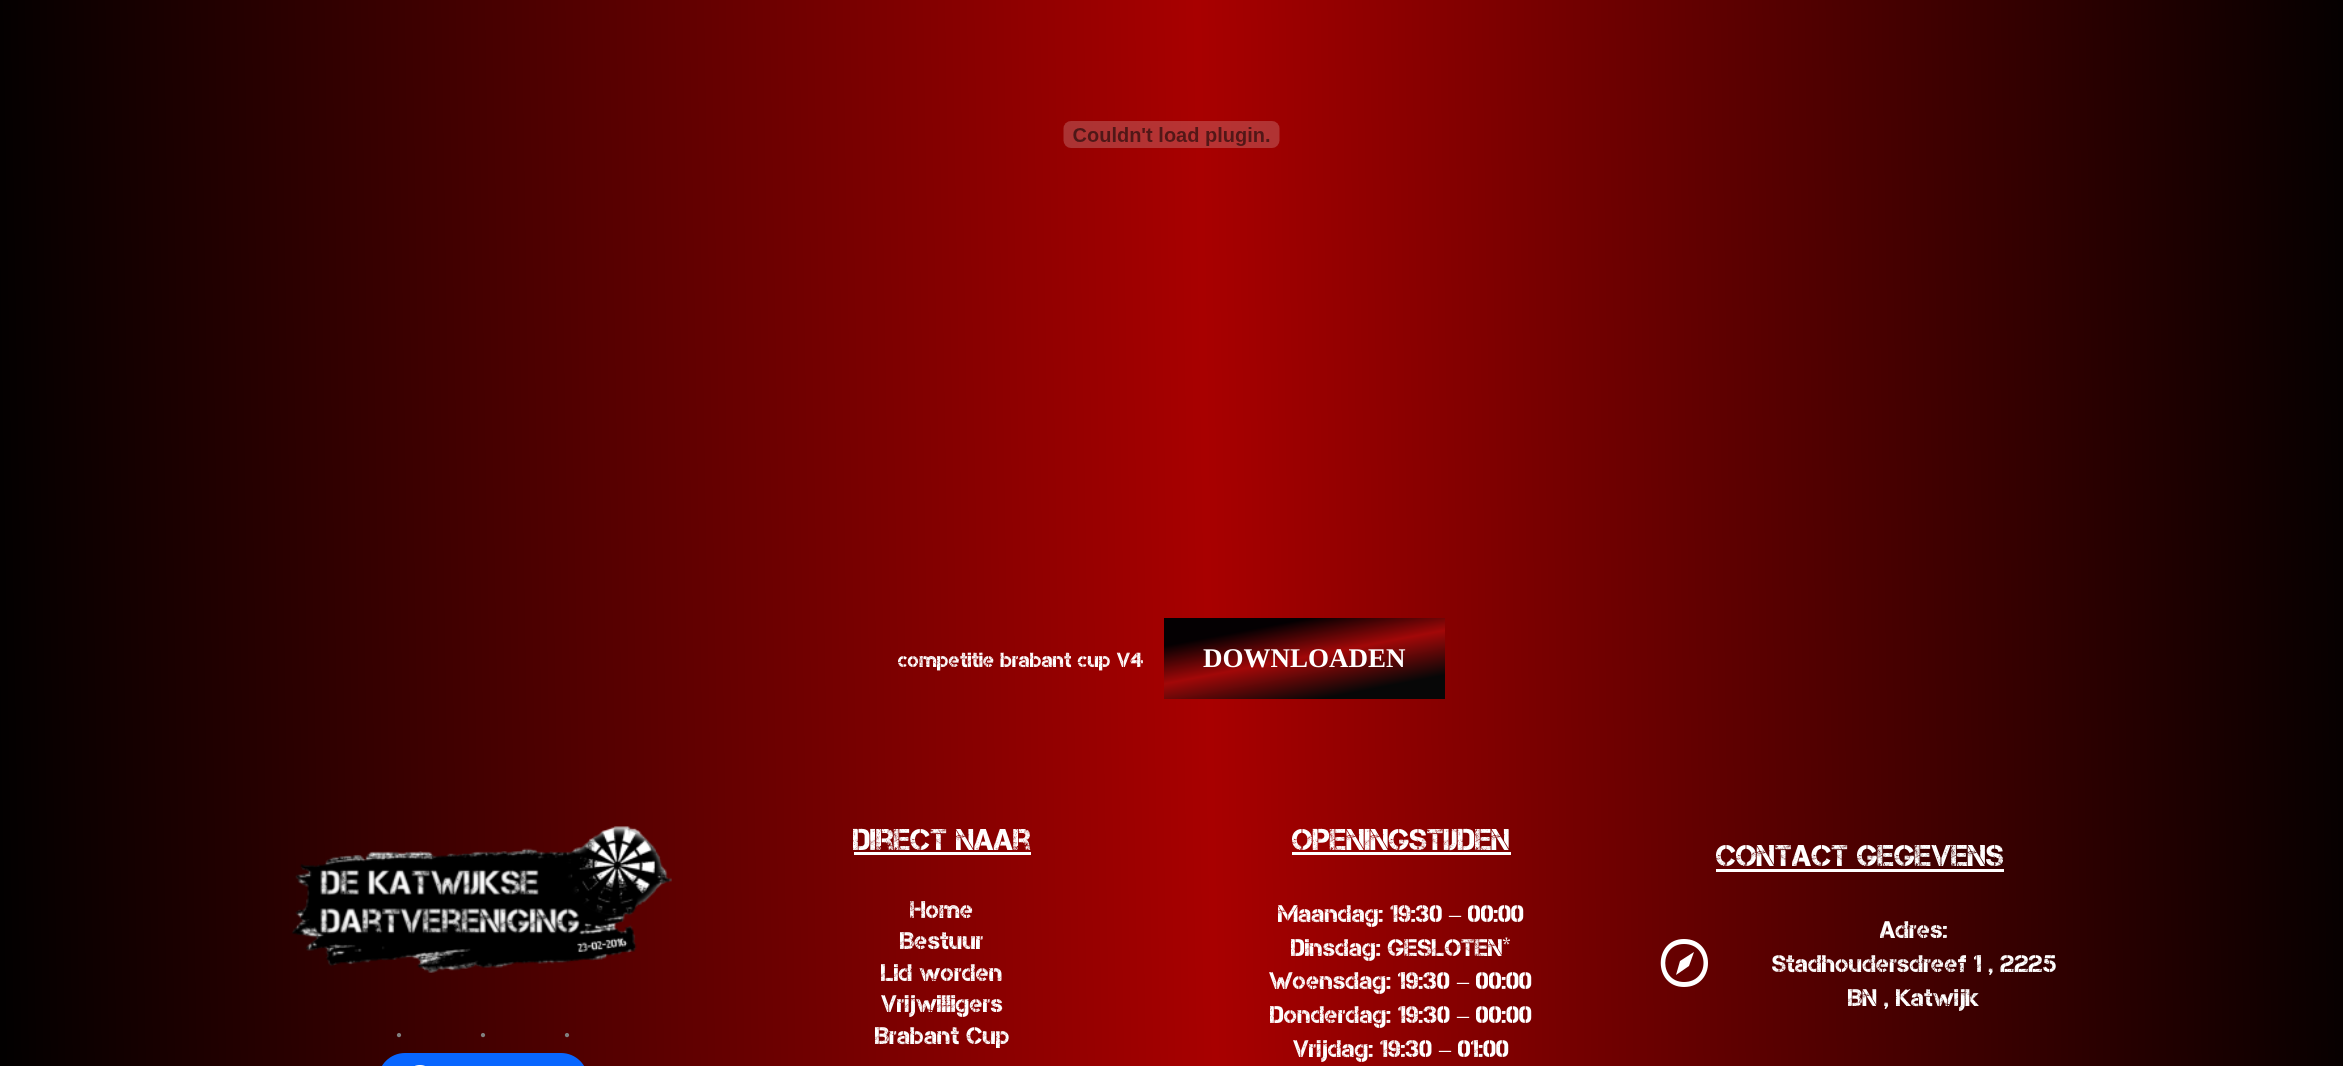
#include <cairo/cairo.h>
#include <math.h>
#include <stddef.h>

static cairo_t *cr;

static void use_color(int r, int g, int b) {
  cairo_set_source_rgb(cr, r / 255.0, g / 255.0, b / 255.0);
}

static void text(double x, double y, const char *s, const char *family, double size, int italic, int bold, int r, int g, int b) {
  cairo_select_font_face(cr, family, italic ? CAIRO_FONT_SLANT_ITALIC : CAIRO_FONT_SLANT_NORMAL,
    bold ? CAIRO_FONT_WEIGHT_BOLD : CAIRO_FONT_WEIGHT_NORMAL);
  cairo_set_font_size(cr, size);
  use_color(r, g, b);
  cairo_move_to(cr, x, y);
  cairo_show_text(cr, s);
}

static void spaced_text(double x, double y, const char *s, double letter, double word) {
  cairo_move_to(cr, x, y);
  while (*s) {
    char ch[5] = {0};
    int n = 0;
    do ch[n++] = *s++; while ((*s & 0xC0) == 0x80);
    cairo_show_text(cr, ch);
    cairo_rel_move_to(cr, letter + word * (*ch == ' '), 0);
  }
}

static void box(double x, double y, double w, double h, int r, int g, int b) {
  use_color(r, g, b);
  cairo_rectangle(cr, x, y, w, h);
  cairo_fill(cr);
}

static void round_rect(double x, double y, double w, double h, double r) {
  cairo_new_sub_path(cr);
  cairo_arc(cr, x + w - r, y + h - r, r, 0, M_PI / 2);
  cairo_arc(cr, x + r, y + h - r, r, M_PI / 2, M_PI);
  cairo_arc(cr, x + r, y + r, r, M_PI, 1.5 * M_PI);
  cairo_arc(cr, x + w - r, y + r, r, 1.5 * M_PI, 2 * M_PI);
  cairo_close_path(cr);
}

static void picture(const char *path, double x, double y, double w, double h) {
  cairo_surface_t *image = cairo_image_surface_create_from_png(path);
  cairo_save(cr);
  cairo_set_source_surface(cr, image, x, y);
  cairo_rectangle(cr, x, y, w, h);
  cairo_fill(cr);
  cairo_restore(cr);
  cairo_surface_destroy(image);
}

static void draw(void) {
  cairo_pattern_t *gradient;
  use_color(255, 255, 255);
  cairo_paint(cr);
  gradient = cairo_pattern_create_linear(-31, -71, 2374, -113);
  cairo_pattern_add_color_stop_rgba(gradient, 0, 0, 0, 0, 1);
  cairo_pattern_add_color_stop_rgba(gradient, 0.51, 0.659, 0, 0, 1);
  cairo_pattern_add_color_stop_rgba(gradient, 1, 0, 0, 0, 1);
  cairo_set_source(cr, gradient);
  cairo_pattern_destroy(gradient);
  cairo_rectangle(cr, 0, 0, 2343, 1066);
  cairo_fill(cr);
  picture("img_01.png", 1063, 121, 217, 27);
  gradient = cairo_pattern_create_linear(1317, 724, 1292, 593);
  cairo_pattern_add_color_stop_rgba(gradient, 0.18, 0.027, 0.027, 0.027, 1);
  cairo_pattern_add_color_stop_rgba(gradient, 0.51, 0.635, 0.031, 0.031, 1);
  cairo_pattern_add_color_stop_rgba(gradient, 0.79, 0.016, 0, 0.008, 1);
  cairo_set_source(cr, gradient);
  cairo_pattern_destroy(gradient);
  cairo_rectangle(cr, 1164, 618, 281, 81);
  cairo_fill(cr);
  box(854, 852, 177, 3, 255, 255, 255);
  box(1292, 852, 219, 3, 255, 255, 255);
  box(1716, 869, 288, 3, 255, 255, 255);
  cairo_new_path(cr);
  cairo_move_to(cr, 1684, 939);
  cairo_curve_to(cr, 1653, 939, 1653, 987, 1684, 987);
  cairo_curve_to(cr, 1716, 987, 1716, 939, 1684, 939);
  cairo_close_path(cr);
  cairo_move_to(cr, 1684, 982);
  cairo_curve_to(cr, 1659, 982, 1659, 944, 1684, 944);
  cairo_curve_to(cr, 1710, 944, 1710, 982, 1684, 982);
  cairo_close_path(cr);
  cairo_move_to(cr, 1676, 975);
  cairo_line_to(cr, 1689, 966);
  cairo_line_to(cr, 1694, 952);
  cairo_line_to(cr, 1680, 961);
  cairo_close_path(cr);
  cairo_fill(cr);
  picture("img_02.png", 292, 826, 380, 147);
  use_color(8, 102, 255);
  round_rect(378, 1053, 210, 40, 27);
  cairo_fill(cr);
  picture("img_03.png", 415, 1065, 10, 1);
  text(898, 667, "competitie brabant cup V4", "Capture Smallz", 20.4, 0, 0, 255, 255, 255);
  text(1203, 667, "DOWNLOADEN", "Liberation Serif", 27, 0, 1, 255, 255, 255);
  text(853, 850, "Direct naar", "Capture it", 30, 0, 0, 255, 255, 255);
  text(910, 918, "Home", "Capture Smallz", 24, 0, 0, 255, 255, 255);
  text(900, 949, "Bestuur", "Capture Smallz", 24, 0, 0, 255, 255, 255);
  text(881, 981, "Lid worden", "Capture Smallz", 24, 0, 0, 255, 255, 255);
  text(881, 1012, "Vrijwilligers", "Capture Smallz", 24, 0, 0, 255, 255, 255);
  text(875, 1044, "Brabant Cup", "Capture Smallz", 24, 0, 0, 255, 255, 255);
  text(1292, 850, "Openingstijden", "Capture it", 30, 0, 0, 255, 255, 255);
  text(1278, 922, "Maandag: 19:30", "Capture Smallz", 24, 0, 0, 255, 255, 255);
  text(1449, 922, "–", "Liberation Serif", 24, 0, 0, 255, 255, 255);
  text(1468, 922, "00:00", "Capture Smallz", 24, 0, 0, 255, 255, 255);
  text(1291, 956, "Dinsdag: GESLOTEN*", "Capture Smallz", 24, 0, 0, 255, 255, 255);
  text(1269, 989, "Woensdag: 19:30", "Capture Smallz", 24, 0, 0, 255, 255, 255);
  text(1457, 989, "–", "Liberation Serif", 24, 0, 0, 255, 255, 255);
  text(1476, 989, "00:00", "Capture Smallz", 24, 0, 0, 255, 255, 255);
  text(1270, 1023, "Donderdag: 19:30", "Capture Smallz", 24, 0, 0, 255, 255, 255);
  text(1457, 1023, "–", "Liberation Serif", 24, 0, 0, 255, 255, 255);
  text(1476, 1023, "00:00", "Capture Smallz", 24, 0, 0, 255, 255, 255);
  text(1293, 1057, "Vrijdag: 19:30", "Capture Smallz", 24, 0, 0, 255, 255, 255);
  text(1439, 1057, "–", "Liberation Serif", 24, 0, 0, 255, 255, 255);
  text(1458, 1057, "01:00", "Capture Smallz", 24, 0, 0, 255, 255, 255);
  text(1716, 866, "Contact Gegevens", "Capture it", 30, 0, 0, 255, 255, 255);
  text(1880, 938, "Adres:", "Capture Smallz", 24, 0, 0, 255, 255, 255);
  text(1772, 972, "Stadhoudersdreef 1 , 2225", "Capture Smallz", 24, 0, 0, 255, 255, 255);
  text(1848, 1006, "BN , Katwijk", "Capture Smallz", 24, 0, 0, 255, 255, 255);
  cairo_select_font_face(cr, "Liberation Serif", CAIRO_FONT_SLANT_NORMAL, CAIRO_FONT_WEIGHT_NORMAL);
  cairo_set_font_size(cr, 36);
  use_color(128, 128, 128);
  spaced_text(393, 1047, "···", 72, 0);
}

int main(void) {
  cairo_surface_t *surface = cairo_image_surface_create(CAIRO_FORMAT_RGB24, 2343, 1066);
  cr = cairo_create(surface);
  cairo_font_options_t *options = cairo_font_options_create();
  cairo_font_options_set_hint_metrics(options, CAIRO_HINT_METRICS_OFF);
  cairo_font_options_set_hint_style(options, CAIRO_HINT_STYLE_NONE);
  cairo_set_font_options(cr, options);
  cairo_set_miter_limit(cr, 4);
  draw();
  cairo_surface_write_to_png(surface, "out.png");
  cairo_font_options_destroy(options);
  cairo_destroy(cr);
  cairo_surface_destroy(surface);
  return 0;
}
